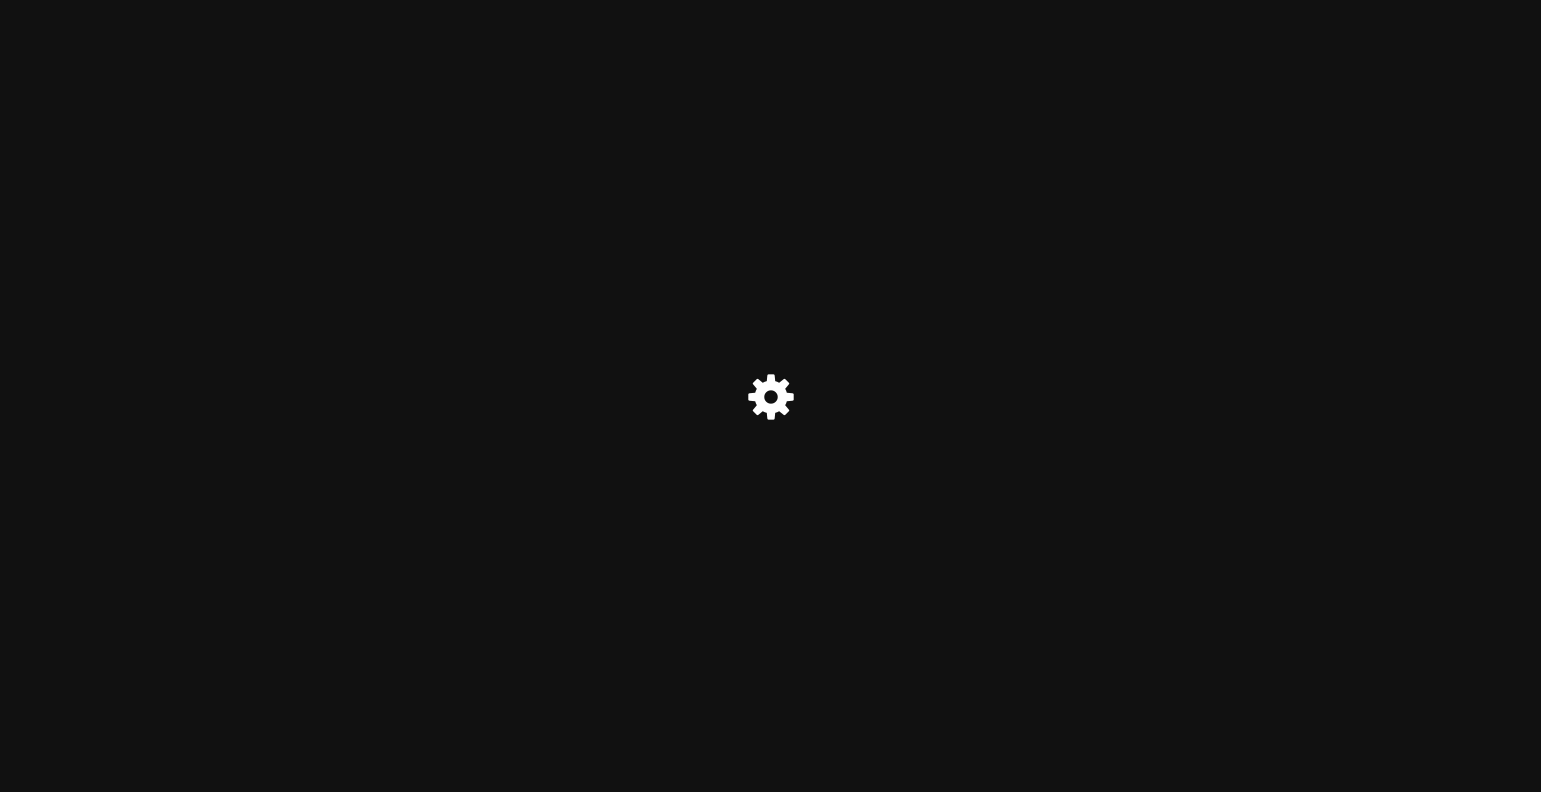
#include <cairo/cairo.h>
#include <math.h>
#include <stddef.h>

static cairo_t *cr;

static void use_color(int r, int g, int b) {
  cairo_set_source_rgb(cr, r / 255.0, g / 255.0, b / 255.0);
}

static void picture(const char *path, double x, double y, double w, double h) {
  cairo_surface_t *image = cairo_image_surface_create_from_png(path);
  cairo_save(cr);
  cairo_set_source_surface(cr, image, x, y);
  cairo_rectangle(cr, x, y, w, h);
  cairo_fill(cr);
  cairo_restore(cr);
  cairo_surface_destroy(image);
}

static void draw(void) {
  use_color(17, 17, 17);
  cairo_paint(cr);
  picture("img_01.png", 748, 374, 46, 46);
}

int main(void) {
  cairo_surface_t *surface = cairo_image_surface_create(CAIRO_FORMAT_RGB24, 1541, 792);
  cr = cairo_create(surface);
  cairo_font_options_t *options = cairo_font_options_create();
  cairo_font_options_set_hint_metrics(options, CAIRO_HINT_METRICS_OFF);
  cairo_font_options_set_hint_style(options, CAIRO_HINT_STYLE_NONE);
  cairo_set_font_options(cr, options);
  cairo_set_miter_limit(cr, 4);
  draw();
  cairo_surface_write_to_png(surface, "out.png");
  cairo_font_options_destroy(options);
  cairo_destroy(cr);
  cairo_surface_destroy(surface);
  return 0;
}
